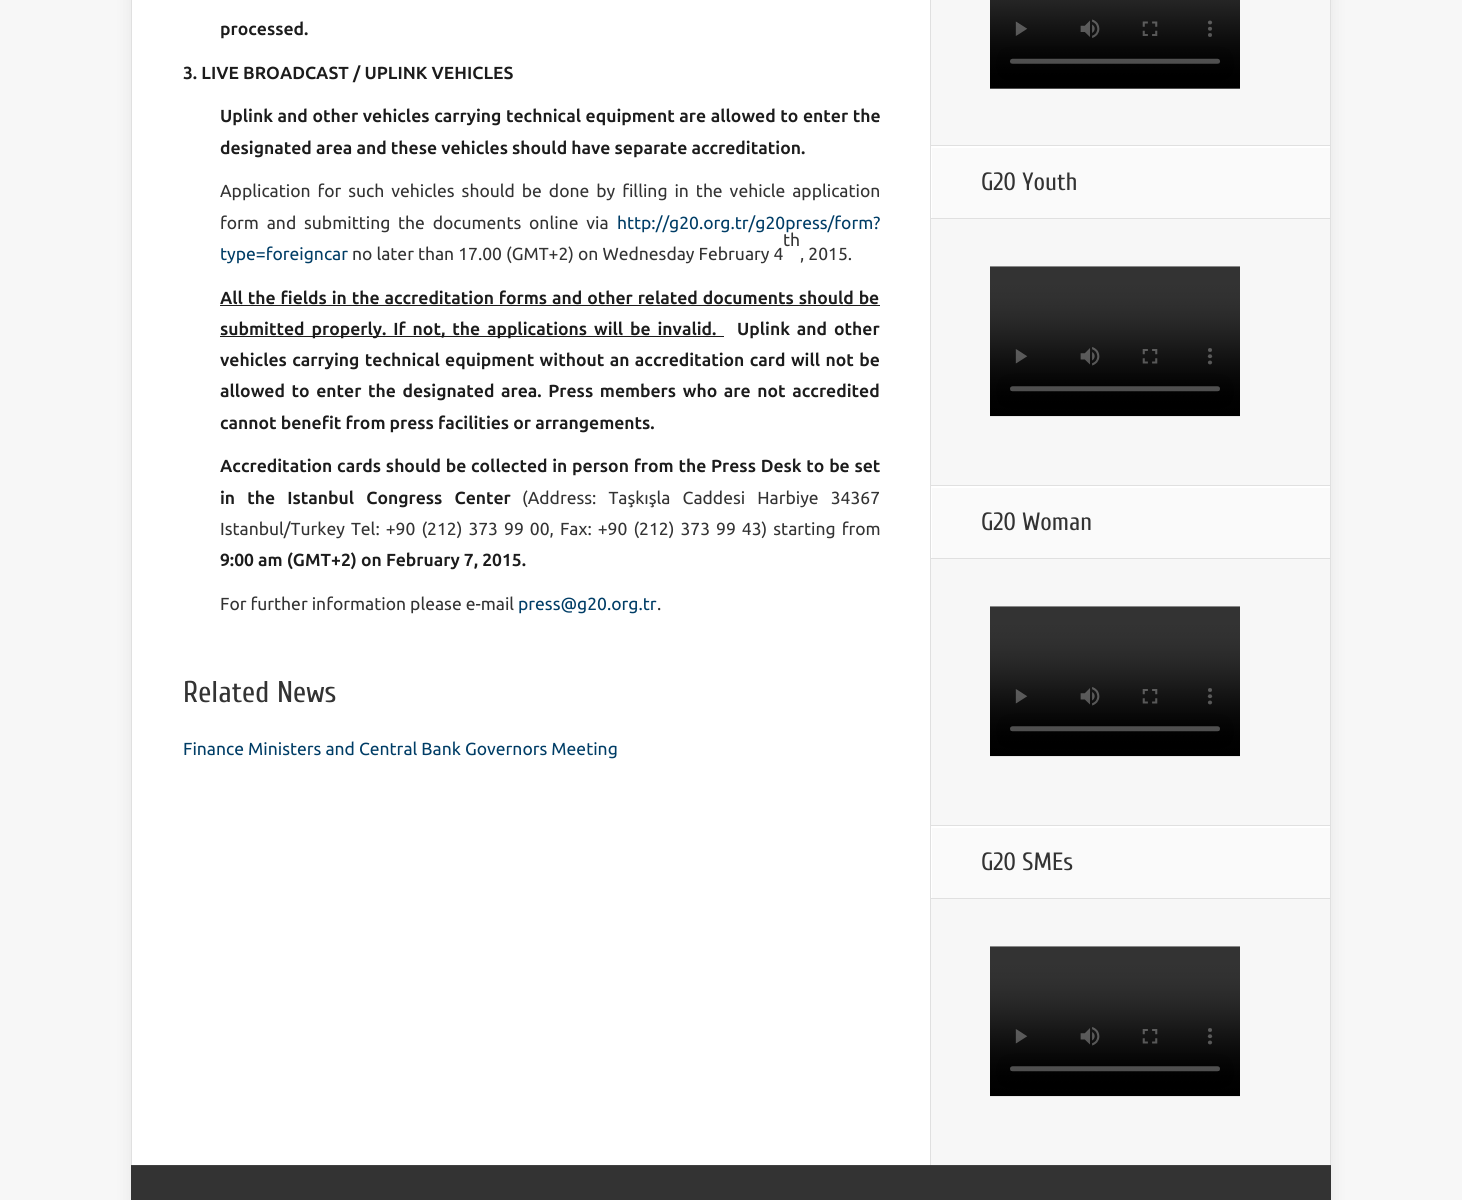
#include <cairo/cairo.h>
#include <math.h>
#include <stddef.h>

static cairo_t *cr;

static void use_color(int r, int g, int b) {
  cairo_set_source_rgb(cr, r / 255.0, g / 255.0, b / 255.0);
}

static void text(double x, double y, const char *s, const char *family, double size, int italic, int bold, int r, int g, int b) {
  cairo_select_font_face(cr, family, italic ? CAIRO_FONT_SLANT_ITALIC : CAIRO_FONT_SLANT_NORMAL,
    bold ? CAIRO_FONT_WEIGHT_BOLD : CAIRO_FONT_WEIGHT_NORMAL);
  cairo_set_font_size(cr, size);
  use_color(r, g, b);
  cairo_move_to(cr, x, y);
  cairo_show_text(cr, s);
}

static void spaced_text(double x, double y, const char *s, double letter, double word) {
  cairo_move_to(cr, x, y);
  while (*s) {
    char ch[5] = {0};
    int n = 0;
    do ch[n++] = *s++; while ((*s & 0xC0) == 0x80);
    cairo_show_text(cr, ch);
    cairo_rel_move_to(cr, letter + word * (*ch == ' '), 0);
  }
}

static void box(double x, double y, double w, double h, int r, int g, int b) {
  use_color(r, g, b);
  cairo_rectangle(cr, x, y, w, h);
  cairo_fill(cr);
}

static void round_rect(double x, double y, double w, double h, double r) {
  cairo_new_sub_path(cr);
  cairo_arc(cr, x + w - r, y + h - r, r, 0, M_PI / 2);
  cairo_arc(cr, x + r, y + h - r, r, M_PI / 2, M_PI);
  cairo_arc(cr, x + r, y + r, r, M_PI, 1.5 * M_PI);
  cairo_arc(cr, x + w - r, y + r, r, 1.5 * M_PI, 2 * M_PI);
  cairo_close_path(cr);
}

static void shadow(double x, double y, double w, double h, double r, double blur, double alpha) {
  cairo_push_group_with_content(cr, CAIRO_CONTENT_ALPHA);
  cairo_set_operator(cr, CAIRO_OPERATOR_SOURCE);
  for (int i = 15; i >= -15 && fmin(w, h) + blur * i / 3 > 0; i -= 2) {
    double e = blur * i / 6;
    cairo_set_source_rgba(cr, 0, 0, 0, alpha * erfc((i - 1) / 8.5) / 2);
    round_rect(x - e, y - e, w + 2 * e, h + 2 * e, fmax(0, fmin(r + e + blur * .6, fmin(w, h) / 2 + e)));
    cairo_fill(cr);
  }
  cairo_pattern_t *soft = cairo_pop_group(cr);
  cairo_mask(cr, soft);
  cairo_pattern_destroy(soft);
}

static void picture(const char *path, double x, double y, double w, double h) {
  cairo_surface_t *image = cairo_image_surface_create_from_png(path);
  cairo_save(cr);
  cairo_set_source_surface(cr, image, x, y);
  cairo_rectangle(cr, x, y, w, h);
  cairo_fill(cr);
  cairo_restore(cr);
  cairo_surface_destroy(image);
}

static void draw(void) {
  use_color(247, 247, 247);
  cairo_paint(cr);
  use_color(0, 0, 0);
  shadow(131, -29, 1200, 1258, 0, 9.5, 0.07);
  box(132, 0, 798, 1165, 255, 255, 255);
  box(1330, 0, 1, 1165, 224, 224, 224);
  box(131, 0, 1, 1165, 224, 224, 224);
  box(930, 0, 1, 1165, 224, 224, 224);
  box(220, 305, 660, 1, 28, 28, 28);
  box(220, 336, 504, 1, 28, 28, 28);
  box(931, 0, 399, 1165, 247, 247, 247);
  picture("img_01.png", 990, 0, 250, 89);
  box(932, 148, 398, 70, 250, 250, 250);
  cairo_save(cr);
  cairo_rectangle(cr, 931, 146, 399, 72);
  cairo_clip(cr);
  use_color(255, 255, 255);
  cairo_set_fill_rule(cr, CAIRO_FILL_RULE_EVEN_ODD);
  cairo_new_path(cr);
  cairo_move_to(cr, 808, 22);
  cairo_line_to(cr, 1454, 22);
  cairo_line_to(cr, 1454, 341);
  cairo_line_to(cr, 808, 341);
  cairo_close_path(cr);
  cairo_move_to(cr, 932, 148);
  cairo_line_to(cr, 1331, 148);
  cairo_line_to(cr, 1331, 219);
  cairo_line_to(cr, 932, 219);
  cairo_close_path(cr);
  cairo_fill(cr);
  cairo_restore(cr);
  box(930, 145, 400, 1, 224, 224, 224);
  box(930, 218, 400, 1, 224, 224, 224);
  picture("img_02.png", 990, 266, 250, 151);
  box(932, 488, 398, 70, 250, 250, 250);
  cairo_save(cr);
  cairo_rectangle(cr, 931, 486, 399, 72);
  cairo_clip(cr);
  use_color(255, 255, 255);
  cairo_set_fill_rule(cr, CAIRO_FILL_RULE_EVEN_ODD);
  cairo_new_path(cr);
  cairo_move_to(cr, 808, 362);
  cairo_line_to(cr, 1454, 362);
  cairo_line_to(cr, 1454, 681);
  cairo_line_to(cr, 808, 681);
  cairo_close_path(cr);
  cairo_move_to(cr, 932, 488);
  cairo_line_to(cr, 1331, 488);
  cairo_line_to(cr, 1331, 559);
  cairo_line_to(cr, 932, 559);
  cairo_close_path(cr);
  cairo_fill(cr);
  cairo_restore(cr);
  box(930, 485, 400, 1, 224, 224, 224);
  box(930, 558, 400, 1, 224, 224, 224);
  picture("img_03.png", 990, 606, 250, 151);
  box(932, 828, 398, 70, 250, 250, 250);
  cairo_save(cr);
  cairo_rectangle(cr, 931, 826, 399, 72);
  cairo_clip(cr);
  use_color(255, 255, 255);
  cairo_set_fill_rule(cr, CAIRO_FILL_RULE_EVEN_ODD);
  cairo_new_path(cr);
  cairo_move_to(cr, 808, 702);
  cairo_line_to(cr, 1454, 702);
  cairo_line_to(cr, 1454, 1021);
  cairo_line_to(cr, 808, 1021);
  cairo_close_path(cr);
  cairo_move_to(cr, 932, 828);
  cairo_line_to(cr, 1331, 828);
  cairo_line_to(cr, 1331, 899);
  cairo_line_to(cr, 932, 899);
  cairo_close_path(cr);
  cairo_fill(cr);
  cairo_restore(cr);
  box(930, 825, 400, 1, 224, 224, 224);
  box(930, 898, 400, 1, 224, 224, 224);
  picture("img_04.png", 990, 946, 250, 151);
  box(131, 1166, 1200, 34, 51, 51, 51);
  box(131, 1165, 1200, 1, 64, 64, 64);
  text(220, 35, "processed.", "Ubuntu", 17.5, 0, 1, 28, 28, 28);
  text(183, 79, "3. LIVE BROADCAST / UPLINK VEHICLES", "Ubuntu", 17.5, 0, 1, 28, 28, 28);
  spaced_text(220, 122, "Uplink and other vehicles carrying technical equipment are allowed to enter the", 0, 0.5);
  text(220, 154, "designated area and these vehicles should have separate accreditation.", "Ubuntu", 17.5, 0, 1, 28, 28, 28);
  cairo_select_font_face(cr, "Ubuntu", CAIRO_FONT_SLANT_NORMAL, CAIRO_FONT_WEIGHT_NORMAL);
  use_color(51, 51, 51);
  spaced_text(220, 197, "Application for such vehicles should be done by filling in the vehicle application", 0, 2.9);
  spaced_text(220, 229, "form and submitting the documents online via", 0, 3.75);
  text(617, 229, "http://g20.org.tr/g20press/form?", "Ubuntu", 17.5, 0, 0, 0, 61, 102);
  text(783, 246, "th", "Ubuntu", 17.5, 0, 0, 51, 51, 51);
  text(220, 260, "type=foreigncar", "Ubuntu", 17.5, 0, 0, 0, 61, 102);
  text(352, 260, "no later than 17.00 (GMT+2) on Wednesday February 4", "Ubuntu", 17.5, 0, 0, 51, 51, 51);
  text(800, 260, ", 2015.", "Ubuntu", 17.5, 0, 0, 51, 51, 51);
  cairo_select_font_face(cr, "Ubuntu", CAIRO_FONT_SLANT_NORMAL, CAIRO_FONT_WEIGHT_BOLD);
  use_color(28, 28, 28);
  spaced_text(220, 304, "All the fields in the accreditation forms and other related documents should be", 0, 0.75);
  spaced_text(220, 335, "submitted properly. If not, the applications will be invalid.", 0, 2.75);
  spaced_text(737, 335, "Uplink and other", 0, 2.75);
  spaced_text(220, 366, "vehicles carrying technical equipment without an accreditation card will not be", 0, 1.25);
  spaced_text(220, 397, "allowed to enter the designated area. Press members who are not accredited", 0, 2.5);
  text(220, 429, "cannot benefit from press facilities or arrangements.", "Ubuntu", 17.5, 0, 1, 28, 28, 28);
  spaced_text(220, 472, "Accreditation cards should be collected in person from the Press Desk to be set", 0, 0.6);
  spaced_text(220, 504, "in the Istanbul Congress Center", 0, 8);
  cairo_select_font_face(cr, "Ubuntu", CAIRO_FONT_SLANT_NORMAL, CAIRO_FONT_WEIGHT_NORMAL);
  use_color(51, 51, 51);
  spaced_text(522, 504, "(Address: Taşkışla Caddesi Harbiye 34367", 0, 8);
  spaced_text(220, 535, "Istanbul/Turkey Tel: +90 (212) 373 99 00, Fax: +90 (212) 373 99 43) starting from", 0, 2);
  text(220, 566, "9:00 am (GMT+2) on February 7, 2015.", "Ubuntu", 17.5, 0, 1, 28, 28, 28);
  text(220, 610, "For further information please e-mail", "Ubuntu", 17.5, 0, 0, 51, 51, 51);
  text(518, 610, "press@g20.org.tr", "Ubuntu", 17.5, 0, 0, 0, 61, 102);
  text(657, 610, ".", "Ubuntu", 17.5, 0, 0, 51, 51, 51);
  text(183, 702, "Related News", "Cuprum", 30, 0, 0, 51, 51, 51);
  text(183, 755, "Finance Ministers and Central Bank Governors Meeting", "Ubuntu", 17.5, 0, 0, 0, 61, 102);
  text(981, 190, "G20 Youth", "Cuprum", 25, 0, 0, 51, 51, 51);
  text(981, 530, "G20 Woman", "Cuprum", 25, 0, 0, 51, 51, 51);
  text(981, 870, "G20 SMEs", "Cuprum", 25, 0, 0, 51, 51, 51);
}

int main(void) {
  cairo_surface_t *surface = cairo_image_surface_create(CAIRO_FORMAT_RGB24, 1462, 1200);
  cr = cairo_create(surface);
  cairo_font_options_t *options = cairo_font_options_create();
  cairo_font_options_set_hint_metrics(options, CAIRO_HINT_METRICS_OFF);
  cairo_font_options_set_hint_style(options, CAIRO_HINT_STYLE_NONE);
  cairo_set_font_options(cr, options);
  cairo_set_miter_limit(cr, 4);
  draw();
  cairo_surface_write_to_png(surface, "out.png");
  cairo_font_options_destroy(options);
  cairo_destroy(cr);
  cairo_surface_destroy(surface);
  return 0;
}
